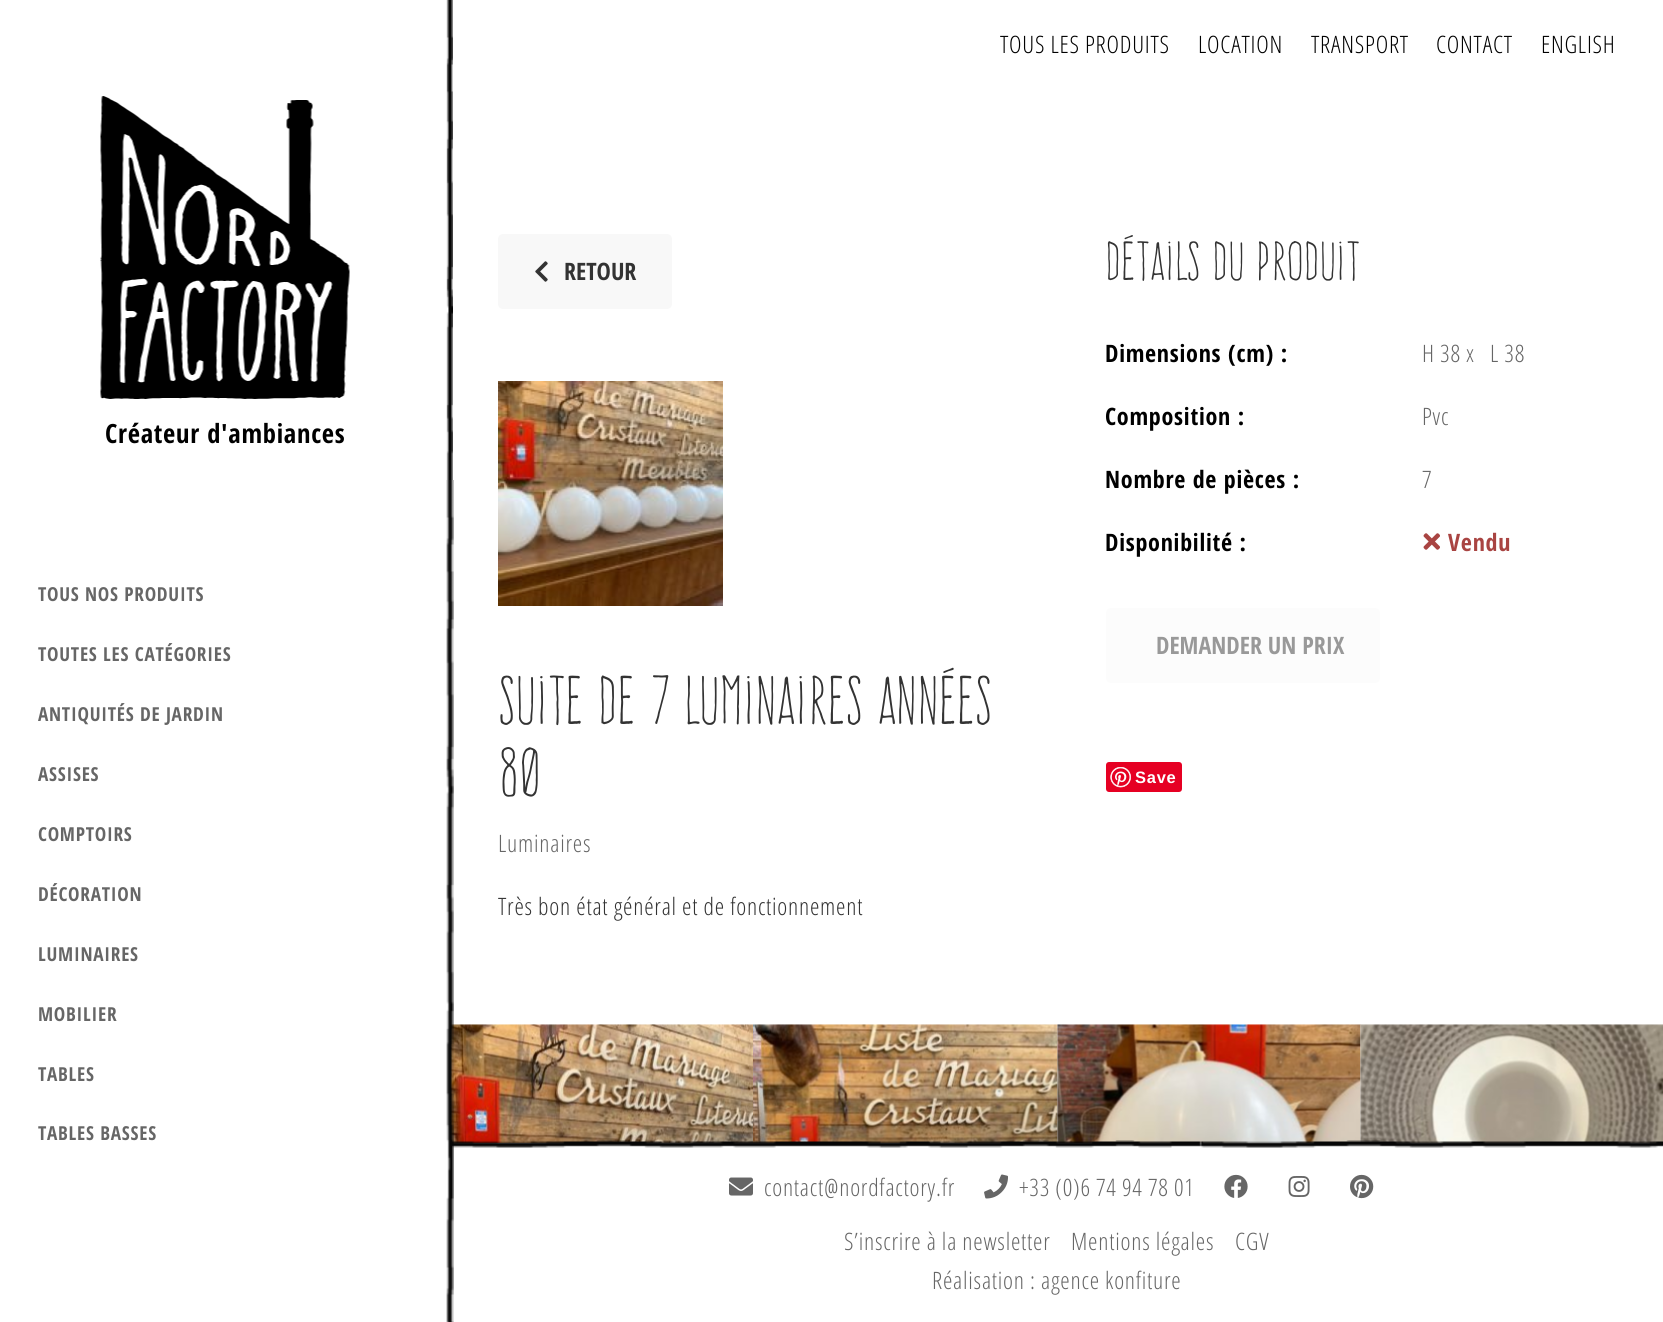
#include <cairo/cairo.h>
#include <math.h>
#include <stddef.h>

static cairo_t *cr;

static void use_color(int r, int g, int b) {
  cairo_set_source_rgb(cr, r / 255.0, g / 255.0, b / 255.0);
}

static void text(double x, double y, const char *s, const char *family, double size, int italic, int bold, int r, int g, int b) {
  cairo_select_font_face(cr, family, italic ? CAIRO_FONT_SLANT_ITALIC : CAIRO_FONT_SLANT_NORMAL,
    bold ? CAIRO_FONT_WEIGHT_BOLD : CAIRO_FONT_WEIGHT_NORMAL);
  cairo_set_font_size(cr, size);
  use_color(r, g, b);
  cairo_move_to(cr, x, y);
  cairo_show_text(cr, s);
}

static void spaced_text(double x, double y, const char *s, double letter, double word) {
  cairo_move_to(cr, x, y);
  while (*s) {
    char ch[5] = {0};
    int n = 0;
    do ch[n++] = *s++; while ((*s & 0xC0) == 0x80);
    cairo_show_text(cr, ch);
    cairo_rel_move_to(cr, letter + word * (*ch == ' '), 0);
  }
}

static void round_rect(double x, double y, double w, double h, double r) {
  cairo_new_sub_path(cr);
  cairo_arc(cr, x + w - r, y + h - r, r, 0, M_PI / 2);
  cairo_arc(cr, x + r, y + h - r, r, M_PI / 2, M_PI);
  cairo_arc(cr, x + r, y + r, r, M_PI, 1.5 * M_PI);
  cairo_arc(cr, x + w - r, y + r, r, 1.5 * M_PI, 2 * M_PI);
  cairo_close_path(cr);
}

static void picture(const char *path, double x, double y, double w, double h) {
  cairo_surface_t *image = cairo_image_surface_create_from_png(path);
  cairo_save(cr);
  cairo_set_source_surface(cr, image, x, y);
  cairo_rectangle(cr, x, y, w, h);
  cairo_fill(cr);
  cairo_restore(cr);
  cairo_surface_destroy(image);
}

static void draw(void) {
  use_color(255, 255, 255);
  cairo_paint(cr);
  picture("img_01.png", 100, 96, 250, 303);
  picture("img_02.png", 446, 0, 7, 480);
  picture("img_08.png", 450, 1024, 303, 119);
  picture("img_09.png", 753, 1024, 305, 119);
  picture("img_10.png", 1057, 1024, 304, 119);
  picture("img_11.png", 1360, 1024, 303, 119);
  picture("img_12.png", 452, 1140, 1211, 8);
  picture("img_03.png", 446, 480, 8, 842);
  use_color(248, 248, 248);
  round_rect(498, 234, 174, 75, 5);
  cairo_fill(cr);
  picture("img_04.png", 535, 261, 13, 21);
  picture("img_05.png", 498, 381, 225, 225);
  picture("img_06.png", 1423, 533, 17, 17);
  use_color(252, 252, 252);
  round_rect(1106, 608, 274, 75, 5);
  cairo_fill(cr);
  use_color(230, 0, 35);
  round_rect(1106, 762, 76, 30, 3);
  cairo_fill(cr);
  picture("img_07.png", 1110, 767, 21, 21);
  picture("img_13.png", 729, 1177, 24, 19);
  picture("img_14.png", 984, 1174, 24, 25);
  picture("img_15.png", 1224, 1174, 24, 24);
  picture("img_16.png", 1288, 1176, 22, 21);
  picture("img_17.png", 1350, 1174, 24, 25);
  cairo_select_font_face(cr, "Open Sans Condensed Light", CAIRO_FONT_SLANT_NORMAL, CAIRO_FONT_WEIGHT_NORMAL);
  cairo_set_font_size(cr, 24);
  use_color(0, 0, 0);
  spaced_text(1000, 53, "TOUS LES PRODUITS", 0.75, 0);
  spaced_text(1198, 53, "LOCATION", 0.75, 0);
  spaced_text(1311, 53, "TRANSPORT", 0.75, 0);
  spaced_text(1436, 53, "CONTACT", 0.75, 0);
  spaced_text(1541, 53, "ENGLISH", 0.75, 0);
  cairo_select_font_face(cr, "Open Sans Condensed", CAIRO_FONT_SLANT_NORMAL, CAIRO_FONT_WEIGHT_BOLD);
  cairo_set_font_size(cr, 26.5);
  spaced_text(105, 443, "Créateur d'ambiances", 0.75, 0);
  cairo_set_font_size(cr, 19.25);
  use_color(102, 102, 102);
  spaced_text(38, 601, "TOUS NOS PRODUITS", 0.75, 0);
  spaced_text(38, 661, "TOUTES LES CATÉGORIES", 0.75, 0);
  spaced_text(38, 721, "ANTIQUITÉS DE JARDIN", 0.75, 0);
  spaced_text(38, 781, "ASSISES", 0.75, 0);
  spaced_text(38, 841, "COMPTOIRS", 0.75, 0);
  spaced_text(38, 901, "DÉCORATION", 0.75, 0);
  spaced_text(38, 961, "LUMINAIRES", 0.75, 0);
  spaced_text(38, 1021, "MOBILIER", 0.75, 0);
  spaced_text(38, 1081, "TABLES", 0.75, 0);
  spaced_text(38, 1140, "TABLES BASSES", 0.75, 0);
  text(564, 280, "RETOUR", "Open Sans Condensed", 24, 0, 1, 51, 51, 51);
  cairo_select_font_face(cr, "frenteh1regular", CAIRO_FONT_SLANT_NORMAL, CAIRO_FONT_WEIGHT_NORMAL);
  cairo_set_font_size(cr, 60);
  spaced_text(498, 724, "Suite de 7 luminaires années", 0.75, 0);
  spaced_text(498, 796, "80", 0.75, 0);
  cairo_select_font_face(cr, "Open Sans Condensed Light", CAIRO_FONT_SLANT_NORMAL, CAIRO_FONT_WEIGHT_NORMAL);
  cairo_set_font_size(cr, 24);
  use_color(102, 102, 102);
  spaced_text(498, 852, "Luminaires", 0.75, 0);
  use_color(51, 51, 51);
  spaced_text(498, 915, "Très bon état général et de fonctionnement", 0.75, 0);
  cairo_select_font_face(cr, "frenteh1regular", CAIRO_FONT_SLANT_NORMAL, CAIRO_FONT_WEIGHT_NORMAL);
  cairo_set_font_size(cr, 48);
  spaced_text(1105, 280, "Détails du produit", 0.75, 0);
  cairo_select_font_face(cr, "Open Sans Condensed", CAIRO_FONT_SLANT_NORMAL, CAIRO_FONT_WEIGHT_BOLD);
  cairo_set_font_size(cr, 24);
  use_color(0, 0, 0);
  spaced_text(1105, 362, "Dimensions (cm) :", 0.75, 0);
  cairo_select_font_face(cr, "Open Sans Condensed Light", CAIRO_FONT_SLANT_NORMAL, CAIRO_FONT_WEIGHT_NORMAL);
  use_color(102, 102, 102);
  spaced_text(1422, 362, "H 38 x", 0.75, 0);
  spaced_text(1490, 362, "L 38", 0.75, 0);
  cairo_select_font_face(cr, "Open Sans Condensed", CAIRO_FONT_SLANT_NORMAL, CAIRO_FONT_WEIGHT_BOLD);
  use_color(0, 0, 0);
  spaced_text(1105, 425, "Composition :", 0.75, 0);
  cairo_select_font_face(cr, "Open Sans Condensed Light", CAIRO_FONT_SLANT_NORMAL, CAIRO_FONT_WEIGHT_NORMAL);
  use_color(102, 102, 102);
  spaced_text(1422, 425, "Pvc", 0.75, 0);
  cairo_select_font_face(cr, "Open Sans Condensed", CAIRO_FONT_SLANT_NORMAL, CAIRO_FONT_WEIGHT_BOLD);
  use_color(0, 0, 0);
  spaced_text(1105, 488, "Nombre de pièces :", 0.75, 0);
  cairo_select_font_face(cr, "Open Sans Condensed Light", CAIRO_FONT_SLANT_NORMAL, CAIRO_FONT_WEIGHT_NORMAL);
  use_color(102, 102, 102);
  spaced_text(1422, 488, "7", 0.75, 0);
  cairo_select_font_face(cr, "Open Sans Condensed", CAIRO_FONT_SLANT_NORMAL, CAIRO_FONT_WEIGHT_BOLD);
  use_color(0, 0, 0);
  spaced_text(1105, 551, "Disponibilité :", 0.75, 0);
  use_color(169, 68, 66);
  spaced_text(1448, 551, "Vendu", 0.75, 0);
  text(1156, 654, "DEMANDER UN PRIX", "Open Sans Condensed", 24, 0, 1, 153, 153, 153);
  cairo_select_font_face(cr, "Liberation Sans", CAIRO_FONT_SLANT_NORMAL, CAIRO_FONT_WEIGHT_BOLD);
  cairo_set_font_size(cr, 16.5);
  use_color(255, 255, 255);
  spaced_text(1135, 783, "Save", 0.75, 0);
  cairo_select_font_face(cr, "Open Sans Condensed Light", CAIRO_FONT_SLANT_NORMAL, CAIRO_FONT_WEIGHT_NORMAL);
  cairo_set_font_size(cr, 24);
  use_color(102, 102, 102);
  spaced_text(764, 1196, "contact@nordfactory.fr", 0.75, 0);
  spaced_text(1019, 1196, "+33 (0)6 74 94 78 01", 0.75, 0);
  spaced_text(844, 1250, "S’inscrire à la newsletter", 0.75, 0);
  spaced_text(1071, 1250, "Mentions légales", 0.75, 0);
  spaced_text(1235, 1250, "CGV", 0.75, 0);
  spaced_text(932, 1289, "Réalisation : agence konfiture", 0.75, 0);
}

int main(void) {
  cairo_surface_t *surface = cairo_image_surface_create(CAIRO_FORMAT_RGB24, 1663, 1322);
  cr = cairo_create(surface);
  cairo_font_options_t *options = cairo_font_options_create();
  cairo_font_options_set_hint_metrics(options, CAIRO_HINT_METRICS_OFF);
  cairo_font_options_set_hint_style(options, CAIRO_HINT_STYLE_NONE);
  cairo_set_font_options(cr, options);
  cairo_set_miter_limit(cr, 4);
  draw();
  cairo_surface_write_to_png(surface, "out.png");
  cairo_font_options_destroy(options);
  cairo_destroy(cr);
  cairo_surface_destroy(surface);
  return 0;
}
